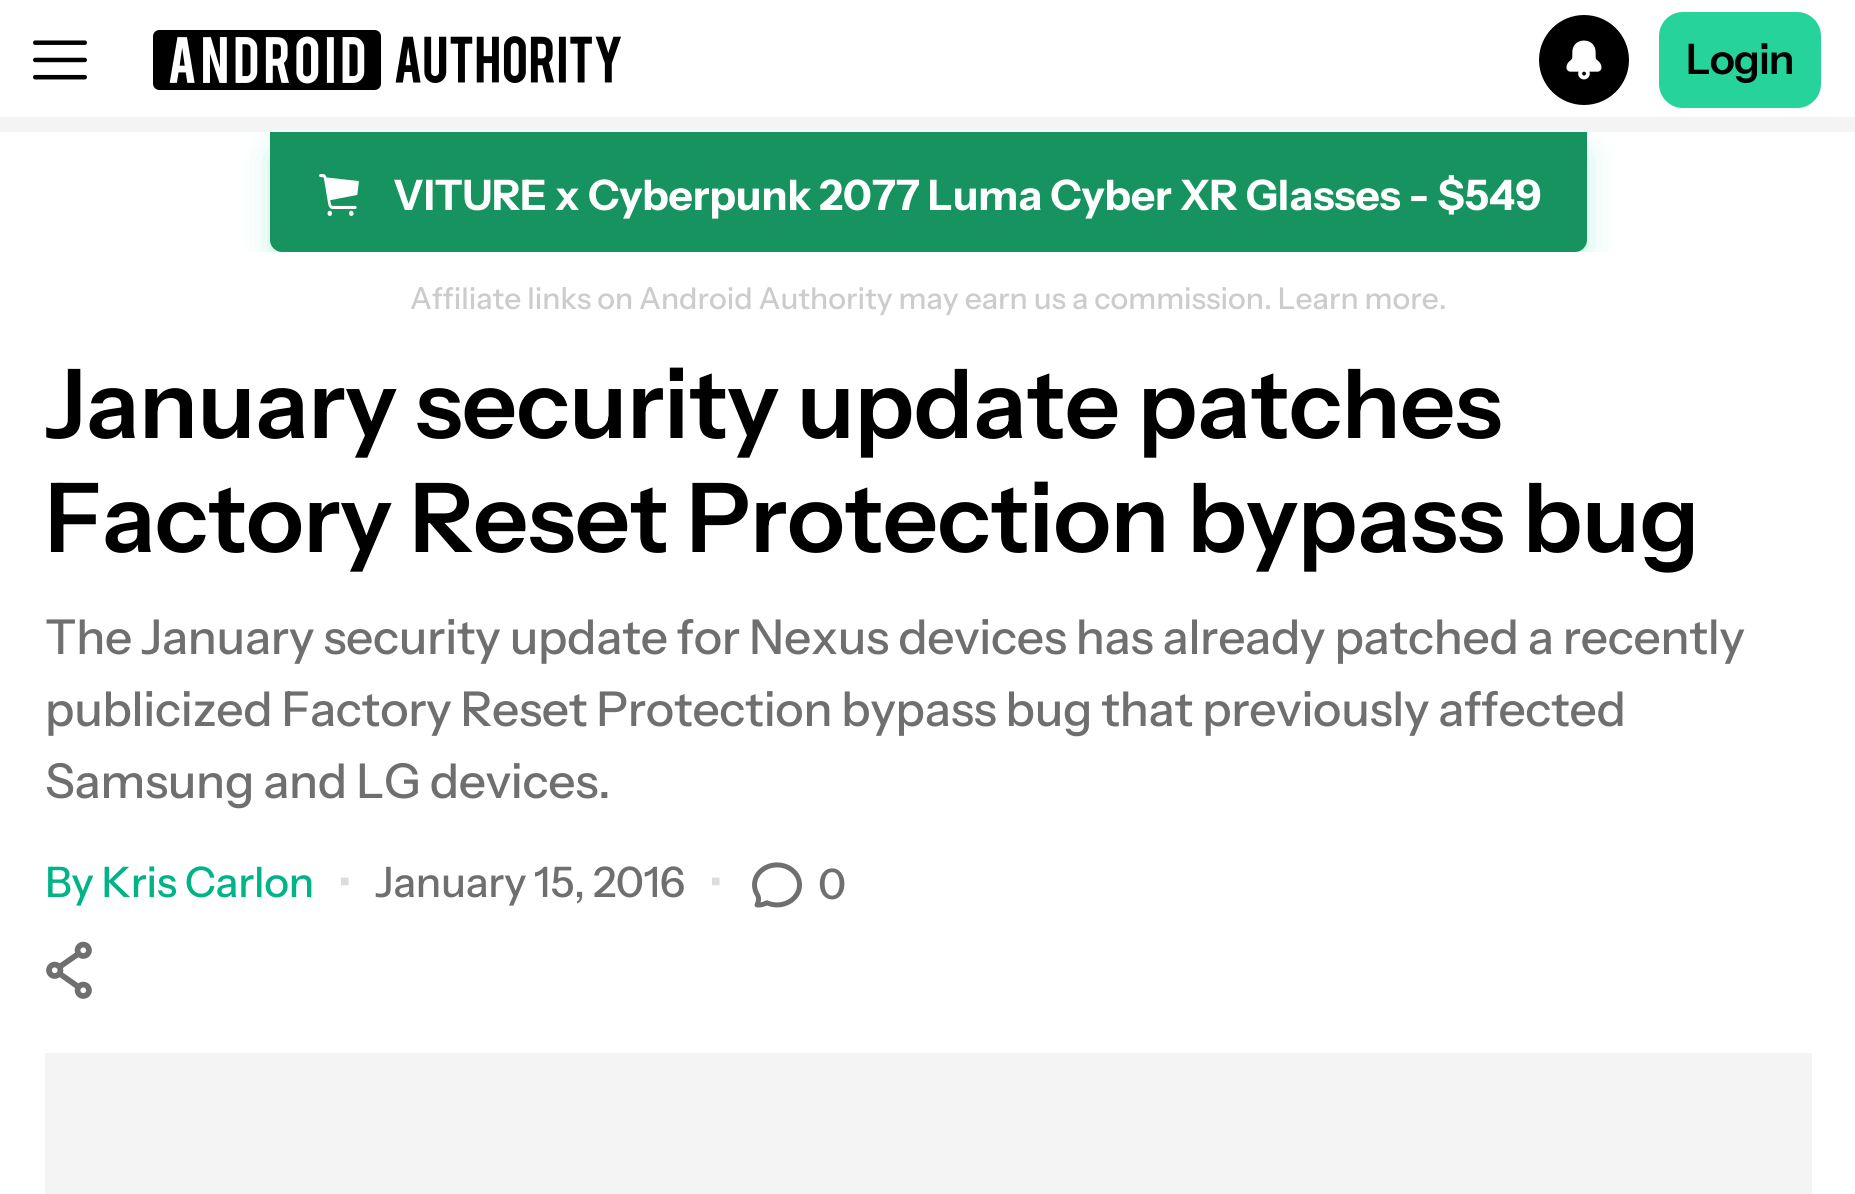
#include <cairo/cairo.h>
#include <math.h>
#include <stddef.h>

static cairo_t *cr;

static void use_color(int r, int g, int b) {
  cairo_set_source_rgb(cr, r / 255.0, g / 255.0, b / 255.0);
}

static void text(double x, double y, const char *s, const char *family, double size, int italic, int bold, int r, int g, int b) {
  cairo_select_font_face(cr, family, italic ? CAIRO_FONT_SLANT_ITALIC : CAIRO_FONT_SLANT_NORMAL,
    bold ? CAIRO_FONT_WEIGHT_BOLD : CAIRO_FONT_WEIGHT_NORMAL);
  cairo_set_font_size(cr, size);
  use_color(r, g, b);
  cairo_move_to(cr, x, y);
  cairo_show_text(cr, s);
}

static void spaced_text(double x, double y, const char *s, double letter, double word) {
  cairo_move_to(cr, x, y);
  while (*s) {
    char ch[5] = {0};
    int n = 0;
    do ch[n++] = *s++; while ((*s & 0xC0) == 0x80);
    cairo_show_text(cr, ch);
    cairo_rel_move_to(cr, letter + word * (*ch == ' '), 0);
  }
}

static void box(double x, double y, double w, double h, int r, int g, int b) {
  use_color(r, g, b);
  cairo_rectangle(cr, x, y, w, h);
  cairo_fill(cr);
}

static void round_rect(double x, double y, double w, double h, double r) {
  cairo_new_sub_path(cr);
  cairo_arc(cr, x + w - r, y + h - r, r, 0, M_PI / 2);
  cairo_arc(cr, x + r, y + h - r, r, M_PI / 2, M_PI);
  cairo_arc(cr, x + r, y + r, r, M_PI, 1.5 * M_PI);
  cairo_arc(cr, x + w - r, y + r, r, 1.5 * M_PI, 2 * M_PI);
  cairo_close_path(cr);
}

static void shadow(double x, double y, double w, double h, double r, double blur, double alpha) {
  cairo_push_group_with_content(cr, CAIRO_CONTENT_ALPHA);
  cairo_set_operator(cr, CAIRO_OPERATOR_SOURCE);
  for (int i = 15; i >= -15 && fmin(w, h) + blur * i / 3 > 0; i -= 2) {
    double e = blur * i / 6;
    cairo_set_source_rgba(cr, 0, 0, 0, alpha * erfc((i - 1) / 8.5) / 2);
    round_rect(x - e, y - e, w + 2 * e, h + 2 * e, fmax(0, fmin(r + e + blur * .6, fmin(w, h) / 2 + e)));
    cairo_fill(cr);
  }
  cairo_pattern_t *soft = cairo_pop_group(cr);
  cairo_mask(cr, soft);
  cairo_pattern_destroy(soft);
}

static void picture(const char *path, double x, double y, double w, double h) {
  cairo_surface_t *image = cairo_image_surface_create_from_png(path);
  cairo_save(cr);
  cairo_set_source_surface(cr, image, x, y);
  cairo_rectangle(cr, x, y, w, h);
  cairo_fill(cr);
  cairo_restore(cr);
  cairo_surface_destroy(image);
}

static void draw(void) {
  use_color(255, 255, 255);
  cairo_paint(cr);
  picture("img_01.png", 33, 40, 54, 40);
  picture("img_02.png", 153, 30, 468, 60);
  cairo_save(cr);
  cairo_rectangle(cr, 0, 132, 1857, 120);
  cairo_clip(cr);
  use_color(0, 212, 159);
  shadow(282, 156, 1293, 96, 0, 18, 0.5);
  cairo_restore(cr);
  use_color(0, 0, 0);
  cairo_arc(cr, 1584, 60, 45, 0, 2 * M_PI);
  cairo_fill(cr);
  picture("img_03.png", 1566, 40, 36, 40);
  use_color(37, 211, 155);
  round_rect(1660.5, 13.5, 159, 93, 22.5);
  cairo_fill_preserve(cr);
  cairo_set_line_width(cr, 3);
  cairo_stroke(cr);
  box(0, 117, 1855, 15, 244, 244, 244);
  use_color(22, 147, 95);
  cairo_new_path(cr);
  cairo_move_to(cr, 270, 132);
  cairo_line_to(cr, 1587, 132);
  cairo_line_to(cr, 1587, 240);
  cairo_curve_to(cr, 1587, 246.5, 1581.5, 252, 1575, 252);
  cairo_line_to(cr, 282, 252);
  cairo_curve_to(cr, 275.5, 252, 270, 246.5, 270, 240);
  cairo_close_path(cr);
  cairo_fill(cr);
  picture("img_04.png", 319, 174, 40, 42);
  picture("img_05.png", 752, 862, 50, 46);
  picture("img_06.png", 46, 941, 46, 58);
  box(45, 1053, 1767, 141, 244, 244, 244);
  cairo_select_font_face(cr, "Instrument Sans SemiBold", CAIRO_FONT_SLANT_NORMAL, CAIRO_FONT_WEIGHT_NORMAL);
  cairo_set_font_size(cr, 42);
  use_color(0, 0, 0);
  spaced_text(1686, 74, "Login", -1, 0);
  text(393, 210, "VITURE x Cyberpunk 2077 Luma Cyber XR Glasses - $549", "Instrument Sans", 42, 0, 1, 255, 255, 255);
  text(410, 309, "Affiliate links on Android Authority may earn us a commission. Learn more.", "Instrument Sans Medium", 30, 0, 0, 204, 204, 204);
  cairo_select_font_face(cr, "Instrument Sans SemiBold", CAIRO_FONT_SLANT_NORMAL, CAIRO_FONT_WEIGHT_NORMAL);
  cairo_set_font_size(cr, 96);
  use_color(0, 0, 0);
  spaced_text(45, 438, "January security update patches", -0.3, 0);
  spaced_text(45, 552, "Factory Reset Protection bypass bug", -0.3, 0);
  cairo_select_font_face(cr, "Instrument Sans Medium", CAIRO_FONT_SLANT_NORMAL, CAIRO_FONT_WEIGHT_NORMAL);
  cairo_set_font_size(cr, 48);
  use_color(111, 111, 111);
  spaced_text(45, 654, "The January security update for Nexus devices has already patched a recently", -0.3, 0);
  spaced_text(45, 726, "publicized Factory Reset Protection bypass bug that previously affected", -0.3, 0);
  spaced_text(45, 798, "Samsung and LG devices.", -0.3, 0);
  cairo_set_font_size(cr, 42);
  use_color(0, 180, 135);
  spaced_text(45, 897, "By Kris Carlon", -0.3, 0);
  use_color(220, 220, 220);
  spaced_text(338, 897, "•", -0.3, 0);
  use_color(111, 111, 111);
  spaced_text(375, 897, "January 15, 2016", -0.3, 0);
  use_color(220, 220, 220);
  spaced_text(709, 897, "•", -0.3, 0);
  use_color(111, 111, 111);
  spaced_text(818, 899, "0", -0.3, 0);
}

int main(void) {
  cairo_surface_t *surface = cairo_image_surface_create(CAIRO_FORMAT_RGB24, 1855, 1194);
  cr = cairo_create(surface);
  cairo_font_options_t *options = cairo_font_options_create();
  cairo_font_options_set_hint_metrics(options, CAIRO_HINT_METRICS_OFF);
  cairo_font_options_set_hint_style(options, CAIRO_HINT_STYLE_NONE);
  cairo_set_font_options(cr, options);
  cairo_set_miter_limit(cr, 4);
  draw();
  cairo_surface_write_to_png(surface, "out.png");
  cairo_font_options_destroy(options);
  cairo_destroy(cr);
  cairo_surface_destroy(surface);
  return 0;
}
